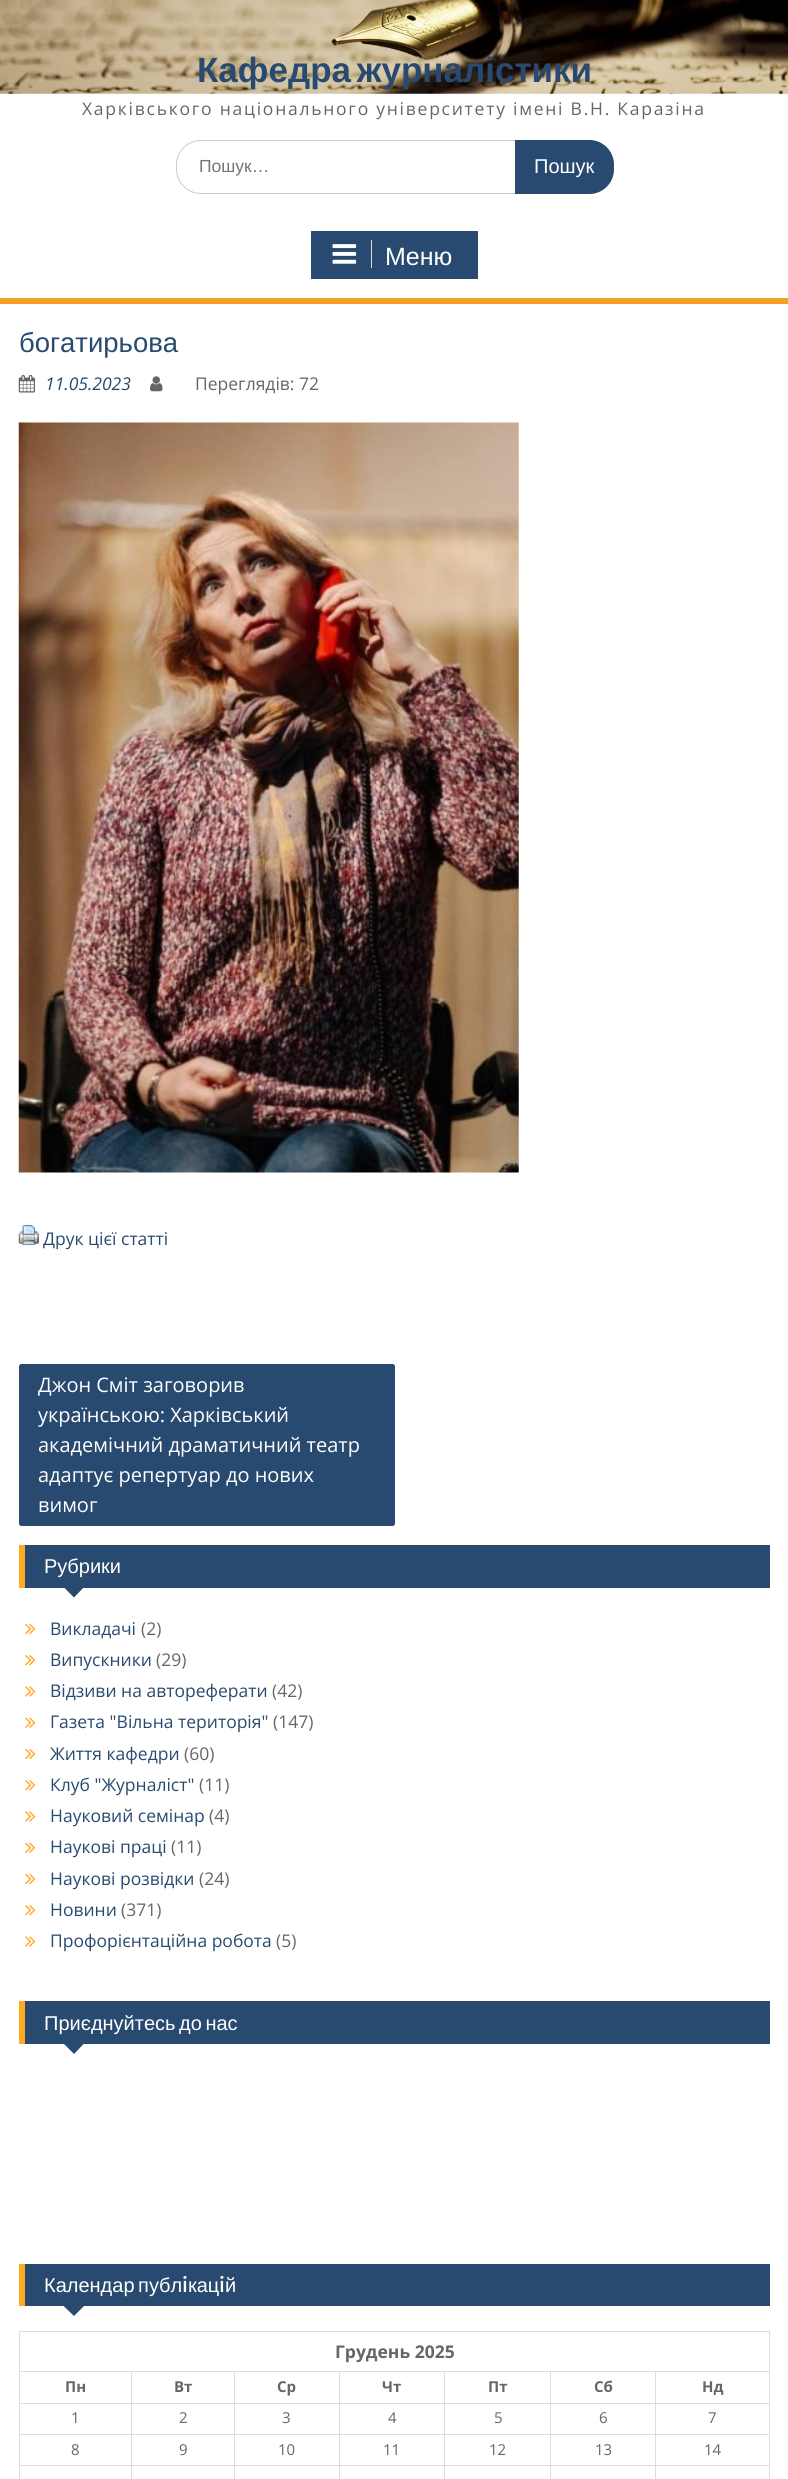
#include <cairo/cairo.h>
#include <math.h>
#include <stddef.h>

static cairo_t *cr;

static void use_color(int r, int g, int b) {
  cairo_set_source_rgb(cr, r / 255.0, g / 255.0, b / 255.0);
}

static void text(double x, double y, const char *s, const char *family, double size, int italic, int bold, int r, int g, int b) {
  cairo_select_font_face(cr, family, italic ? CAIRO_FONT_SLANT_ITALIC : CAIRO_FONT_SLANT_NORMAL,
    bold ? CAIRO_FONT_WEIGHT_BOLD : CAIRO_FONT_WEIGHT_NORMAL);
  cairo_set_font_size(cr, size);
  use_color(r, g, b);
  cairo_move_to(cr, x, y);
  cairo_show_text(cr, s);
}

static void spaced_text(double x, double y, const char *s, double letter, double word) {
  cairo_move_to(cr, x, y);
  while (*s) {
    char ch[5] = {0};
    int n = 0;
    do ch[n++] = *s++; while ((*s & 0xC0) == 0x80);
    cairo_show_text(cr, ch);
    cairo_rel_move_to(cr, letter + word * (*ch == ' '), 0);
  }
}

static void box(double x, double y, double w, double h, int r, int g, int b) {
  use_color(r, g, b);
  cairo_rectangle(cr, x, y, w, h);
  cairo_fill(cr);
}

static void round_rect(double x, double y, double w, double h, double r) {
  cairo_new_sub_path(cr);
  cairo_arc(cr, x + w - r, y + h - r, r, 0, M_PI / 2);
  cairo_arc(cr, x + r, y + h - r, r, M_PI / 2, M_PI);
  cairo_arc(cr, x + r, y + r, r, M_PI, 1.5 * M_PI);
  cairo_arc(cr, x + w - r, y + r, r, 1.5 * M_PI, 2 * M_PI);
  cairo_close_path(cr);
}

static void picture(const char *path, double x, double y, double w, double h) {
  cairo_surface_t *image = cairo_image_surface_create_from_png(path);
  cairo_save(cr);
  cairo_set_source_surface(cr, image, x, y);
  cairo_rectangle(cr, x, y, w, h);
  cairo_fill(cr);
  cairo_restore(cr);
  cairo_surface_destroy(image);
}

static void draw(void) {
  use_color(255, 255, 255);
  cairo_paint(cr);
  picture("img_01.png", 0, 0, 788, 94);
  round_rect(176.5, 140.5, 437, 53, 24.5);
  use_color(204, 204, 204);
  cairo_set_line_width(cr, 1);
  cairo_stroke(cr);
  use_color(41, 74, 112);
  cairo_new_path(cr);
  cairo_move_to(cr, 515, 140);
  cairo_line_to(cr, 589, 140);
  cairo_curve_to(cr, 603, 140, 614, 151, 614, 165);
  cairo_line_to(cr, 614, 169);
  cairo_curve_to(cr, 614, 183, 603, 194, 589, 194);
  cairo_line_to(cr, 515, 194);
  cairo_close_path(cr);
  cairo_fill(cr);
  box(0, 298, 788, 6, 244, 160, 36);
  box(311, 231, 167, 48, 41, 74, 112);
  box(371, 240, 1, 28, 221, 221, 221);
  picture("img_02.png", 332, 244, 25, 20);
  picture("img_03.png", 18, 375, 17, 18);
  picture("img_04.png", 150, 376, 13, 16);
  picture("img_05.png", 18, 422, 501, 751);
  picture("img_06.png", 18, 1225, 21, 20);
  use_color(41, 74, 112);
  round_rect(19, 1364, 376, 162, 2.5);
  cairo_fill(cr);
  box(25, 1545, 745, 43, 41, 74, 112);
  box(19, 1545, 6, 43, 255, 171, 31);
  use_color(41, 74, 112);
  cairo_new_path(cr);
  cairo_move_to(cr, 62.5, 1586);
  cairo_line_to(cr, 85, 1586);
  cairo_line_to(cr, 74, 1597.5);
  cairo_close_path(cr);
  cairo_fill(cr);
  picture("img_07.png", 25, 1623, 11, 12);
  picture("img_08.png", 25, 1655, 11, 11);
  picture("img_09.png", 25, 1686, 11, 11);
  picture("img_10.png", 25, 1717, 11, 11);
  picture("img_07.png", 25, 1748, 11, 12);
  picture("img_08.png", 25, 1780, 11, 11);
  picture("img_09.png", 25, 1811, 11, 11);
  picture("img_10.png", 25, 1842, 11, 11);
  picture("img_07.png", 25, 1873, 11, 12);
  picture("img_08.png", 25, 1905, 11, 11);
  picture("img_09.png", 25, 1936, 11, 11);
  box(25, 2001, 745, 43, 41, 74, 112);
  box(19, 2001, 6, 43, 255, 171, 31);
  use_color(41, 74, 112);
  cairo_new_path(cr);
  cairo_move_to(cr, 62.5, 2042.5);
  cairo_line_to(cr, 85, 2042.5);
  cairo_line_to(cr, 74, 2054);
  cairo_close_path(cr);
  cairo_fill(cr);
  box(25, 2264, 745, 42, 41, 74, 112);
  box(19, 2264, 6, 42, 255, 171, 31);
  use_color(41, 74, 112);
  cairo_new_path(cr);
  cairo_move_to(cr, 62.5, 2305);
  cairo_line_to(cr, 85, 2305);
  cairo_line_to(cr, 74, 2316);
  cairo_close_path(cr);
  cairo_fill(cr);
  box(19, 2331, 751, 1, 221, 221, 221);
  box(769, 2331, 1, 40, 221, 221, 221);
  box(19, 2331, 1, 40, 221, 221, 221);
  box(655, 2371, 115, 1, 221, 221, 221);
  box(655, 2403, 115, 1, 221, 221, 221);
  box(655, 2434, 115, 1, 221, 221, 221);
  box(655, 2465, 115, 1, 221, 221, 221);
  box(655, 2465, 1, 14, 221, 221, 221);
  box(550, 2465, 106, 1, 221, 221, 221);
  box(655, 2434, 1, 32, 221, 221, 221);
  box(550, 2434, 106, 1, 221, 221, 221);
  box(655, 2403, 1, 32, 221, 221, 221);
  box(550, 2403, 106, 1, 221, 221, 221);
  box(655, 2371, 1, 33, 221, 221, 221);
  box(550, 2371, 106, 1, 221, 221, 221);
  box(550, 2465, 1, 14, 221, 221, 221);
  box(444, 2465, 107, 1, 221, 221, 221);
  box(550, 2434, 1, 32, 221, 221, 221);
  box(444, 2434, 107, 1, 221, 221, 221);
  box(550, 2403, 1, 32, 221, 221, 221);
  box(444, 2403, 107, 1, 221, 221, 221);
  box(550, 2371, 1, 33, 221, 221, 221);
  box(444, 2371, 107, 1, 221, 221, 221);
  box(444, 2465, 1, 14, 221, 221, 221);
  box(339, 2465, 106, 1, 221, 221, 221);
  box(444, 2434, 1, 32, 221, 221, 221);
  box(339, 2434, 106, 1, 221, 221, 221);
  box(444, 2403, 1, 32, 221, 221, 221);
  box(339, 2403, 106, 1, 221, 221, 221);
  box(444, 2371, 1, 33, 221, 221, 221);
  box(339, 2371, 106, 1, 221, 221, 221);
  box(339, 2465, 1, 14, 221, 221, 221);
  box(234, 2465, 106, 1, 221, 221, 221);
  box(339, 2434, 1, 32, 221, 221, 221);
  box(234, 2434, 106, 1, 221, 221, 221);
  box(339, 2403, 1, 32, 221, 221, 221);
  box(234, 2403, 106, 1, 221, 221, 221);
  box(339, 2371, 1, 33, 221, 221, 221);
  box(234, 2371, 106, 1, 221, 221, 221);
  box(234, 2465, 1, 14, 221, 221, 221);
  box(131, 2465, 104, 1, 221, 221, 221);
  box(234, 2434, 1, 32, 221, 221, 221);
  box(131, 2434, 104, 1, 221, 221, 221);
  box(234, 2403, 1, 32, 221, 221, 221);
  box(131, 2403, 104, 1, 221, 221, 221);
  box(234, 2371, 1, 33, 221, 221, 221);
  box(131, 2371, 104, 1, 221, 221, 221);
  box(131, 2465, 1, 14, 221, 221, 221);
  box(19, 2465, 114, 1, 221, 221, 221);
  box(131, 2434, 1, 32, 221, 221, 221);
  box(19, 2434, 114, 1, 221, 221, 221);
  box(131, 2403, 1, 32, 221, 221, 221);
  box(19, 2403, 114, 1, 221, 221, 221);
  box(131, 2371, 1, 33, 221, 221, 221);
  box(19, 2371, 114, 1, 221, 221, 221);
  box(19, 2465, 1, 14, 221, 221, 221);
  box(19, 2434, 1, 32, 221, 221, 221);
  box(19, 2403, 1, 32, 221, 221, 221);
  box(19, 2371, 1, 33, 221, 221, 221);
  box(769, 2465, 1, 14, 221, 221, 221);
  box(769, 2434, 1, 32, 221, 221, 221);
  box(769, 2403, 1, 32, 221, 221, 221);
  box(769, 2371, 1, 33, 221, 221, 221);
  cairo_select_font_face(cr, "Liberation Sans", CAIRO_FONT_SLANT_NORMAL, CAIRO_FONT_WEIGHT_BOLD);
  cairo_set_font_size(cr, 35);
  use_color(41, 74, 112);
  spaced_text(197, 82, "Кафедра журналістики", 0, -4);
  cairo_select_font_face(cr, "Open Sans", CAIRO_FONT_SLANT_NORMAL, CAIRO_FONT_WEIGHT_NORMAL);
  cairo_set_font_size(cr, 17.5);
  use_color(102, 102, 102);
  spaced_text(82, 115, "Харківського національного університету імені В.Н. Каразіна", 1.75, 0);
  text(199, 172, "Пошук…", "Liberation Sans", 17.5, 0, 0, 117, 117, 117);
  text(534, 173, "Пошук", "Liberation Sans", 20, 0, 0, 255, 255, 255);
  text(385, 265, "Меню", "Liberation Sans", 25, 0, 0, 255, 255, 255);
  text(19, 352, "богатирьова", "Liberation Sans", 27.5, 0, 0, 41, 74, 112);
  text(45, 390, "11.05.2023", "Open Sans", 17.5, 1, 0, 41, 74, 112);
  text(195, 390, "Переглядів: 72", "Open Sans", 17.5, 0, 0, 102, 102, 102);
  text(43, 1245, "Друк цієї статті", "Open Sans", 17.5, 0, 0, 41, 74, 112);
  text(38, 1392, "Джон Сміт заговорив", "Open Sans", 20, 0, 0, 255, 255, 255);
  text(38, 1422, "українською: Харківський", "Open Sans", 20, 0, 0, 255, 255, 255);
  text(38, 1452, "академічний драматичний театр", "Open Sans", 20, 0, 0, 255, 255, 255);
  text(38, 1482, "адаптує репертуар до нових", "Open Sans", 20, 0, 0, 255, 255, 255);
  text(38, 1512, "вимог", "Open Sans", 20, 0, 0, 255, 255, 255);
  text(44, 1573, "Рубрики", "Liberation Sans", 20, 0, 0, 255, 255, 255);
  text(50, 1635, "Викладачі", "Open Sans", 17.5, 0, 0, 41, 74, 112);
  text(141, 1635, "(2)", "Open Sans", 17.5, 0, 0, 102, 102, 102);
  text(50, 1666, "Випускники", "Open Sans", 17.5, 0, 0, 41, 74, 112);
  text(156, 1666, "(29)", "Open Sans", 17.5, 0, 0, 102, 102, 102);
  text(50, 1697, "Відзиви на автореферати", "Open Sans", 17.5, 0, 0, 41, 74, 112);
  text(272, 1697, "(42)", "Open Sans", 17.5, 0, 0, 102, 102, 102);
  text(50, 1728, "Газета \"Вільна територія\"", "Open Sans", 17.5, 0, 0, 41, 74, 112);
  text(273, 1728, "(147)", "Open Sans", 17.5, 0, 0, 102, 102, 102);
  text(50, 1760, "Життя кафедри", "Open Sans", 17.5, 0, 0, 41, 74, 112);
  text(184, 1760, "(60)", "Open Sans", 17.5, 0, 0, 102, 102, 102);
  text(50, 1791, "Клуб \"Журналіст\"", "Open Sans", 17.5, 0, 0, 41, 74, 112);
  text(199, 1791, "(11)", "Open Sans", 17.5, 0, 0, 102, 102, 102);
  text(50, 1822, "Науковий семінар", "Open Sans", 17.5, 0, 0, 41, 74, 112);
  text(209, 1822, "(4)", "Open Sans", 17.5, 0, 0, 102, 102, 102);
  text(50, 1853, "Наукові праці", "Open Sans", 17.5, 0, 0, 41, 74, 112);
  text(171, 1853, "(11)", "Open Sans", 17.5, 0, 0, 102, 102, 102);
  text(50, 1885, "Наукові розвідки", "Open Sans", 17.5, 0, 0, 41, 74, 112);
  text(199, 1885, "(24)", "Open Sans", 17.5, 0, 0, 102, 102, 102);
  text(50, 1916, "Новини", "Open Sans", 17.5, 0, 0, 41, 74, 112);
  text(121, 1916, "(371)", "Open Sans", 17.5, 0, 0, 102, 102, 102);
  text(50, 1947, "Профорієнтаційна робота", "Open Sans", 17.5, 0, 0, 41, 74, 112);
  text(276, 1947, "(5)", "Open Sans", 17.5, 0, 0, 102, 102, 102);
  cairo_select_font_face(cr, "Liberation Sans", CAIRO_FONT_SLANT_NORMAL, CAIRO_FONT_WEIGHT_NORMAL);
  cairo_set_font_size(cr, 20);
  use_color(255, 255, 255);
  spaced_text(44, 2030, "Приєднуйтесь до нас", 0, -2);
  spaced_text(44, 2292, "Календар публ", 0, -2);
  text(182, 2292, "i", "Merriweather Sans", 20, 0, 0, 255, 255, 255);
  text(188, 2292, "кац", "Liberation Sans", 20, 0, 0, 255, 255, 255);
  text(219, 2292, "i", "Merriweather Sans", 20, 0, 0, 255, 255, 255);
  text(225, 2292, "й", "Liberation Sans", 20, 0, 0, 255, 255, 255);
  text(335, 2358, "Грудень 2025", "Open Sans", 17.5, 0, 1, 102, 102, 102);
  text(65, 2392, "Пн", "Open Sans", 15, 0, 1, 102, 102, 102);
  text(174, 2392, "Вт", "Open Sans", 15, 0, 1, 102, 102, 102);
  text(277, 2392, "Ср", "Open Sans", 15, 0, 1, 102, 102, 102);
  text(382, 2392, "Чт", "Open Sans", 15, 0, 1, 102, 102, 102);
  text(488, 2392, "Пт", "Open Sans", 15, 0, 1, 102, 102, 102);
  text(594, 2392, "Сб", "Open Sans", 15, 0, 1, 102, 102, 102);
  text(702, 2392, "Нд", "Open Sans", 15, 0, 1, 102, 102, 102);
  text(71, 2423, "1", "Open Sans", 15, 0, 0, 102, 102, 102);
  text(179, 2423, "2", "Open Sans", 15, 0, 0, 102, 102, 102);
  text(282, 2423, "3", "Open Sans", 15, 0, 0, 102, 102, 102);
  text(388, 2423, "4", "Open Sans", 15, 0, 0, 102, 102, 102);
  text(494, 2423, "5", "Open Sans", 15, 0, 0, 102, 102, 102);
  text(599, 2423, "6", "Open Sans", 15, 0, 0, 102, 102, 102);
  text(708, 2423, "7", "Open Sans", 15, 0, 0, 102, 102, 102);
  text(71, 2455, "8", "Open Sans", 15, 0, 0, 102, 102, 102);
  text(179, 2455, "9", "Open Sans", 15, 0, 0, 102, 102, 102);
  text(278, 2455, "10", "Open Sans", 15, 0, 0, 102, 102, 102);
  text(383, 2455, "11", "Open Sans", 15, 0, 0, 102, 102, 102);
  text(489, 2455, "12", "Open Sans", 15, 0, 0, 102, 102, 102);
  text(595, 2455, "13", "Open Sans", 15, 0, 0, 102, 102, 102);
  text(704, 2455, "14", "Open Sans", 15, 0, 0, 102, 102, 102);
}

int main(void) {
  cairo_surface_t *surface = cairo_image_surface_create(CAIRO_FORMAT_RGB24, 788, 2479);
  cr = cairo_create(surface);
  cairo_font_options_t *options = cairo_font_options_create();
  cairo_font_options_set_hint_metrics(options, CAIRO_HINT_METRICS_OFF);
  cairo_font_options_set_hint_style(options, CAIRO_HINT_STYLE_NONE);
  cairo_set_font_options(cr, options);
  cairo_set_miter_limit(cr, 4);
  draw();
  cairo_surface_write_to_png(surface, "out.png");
  cairo_font_options_destroy(options);
  cairo_destroy(cr);
  cairo_surface_destroy(surface);
  return 0;
}
